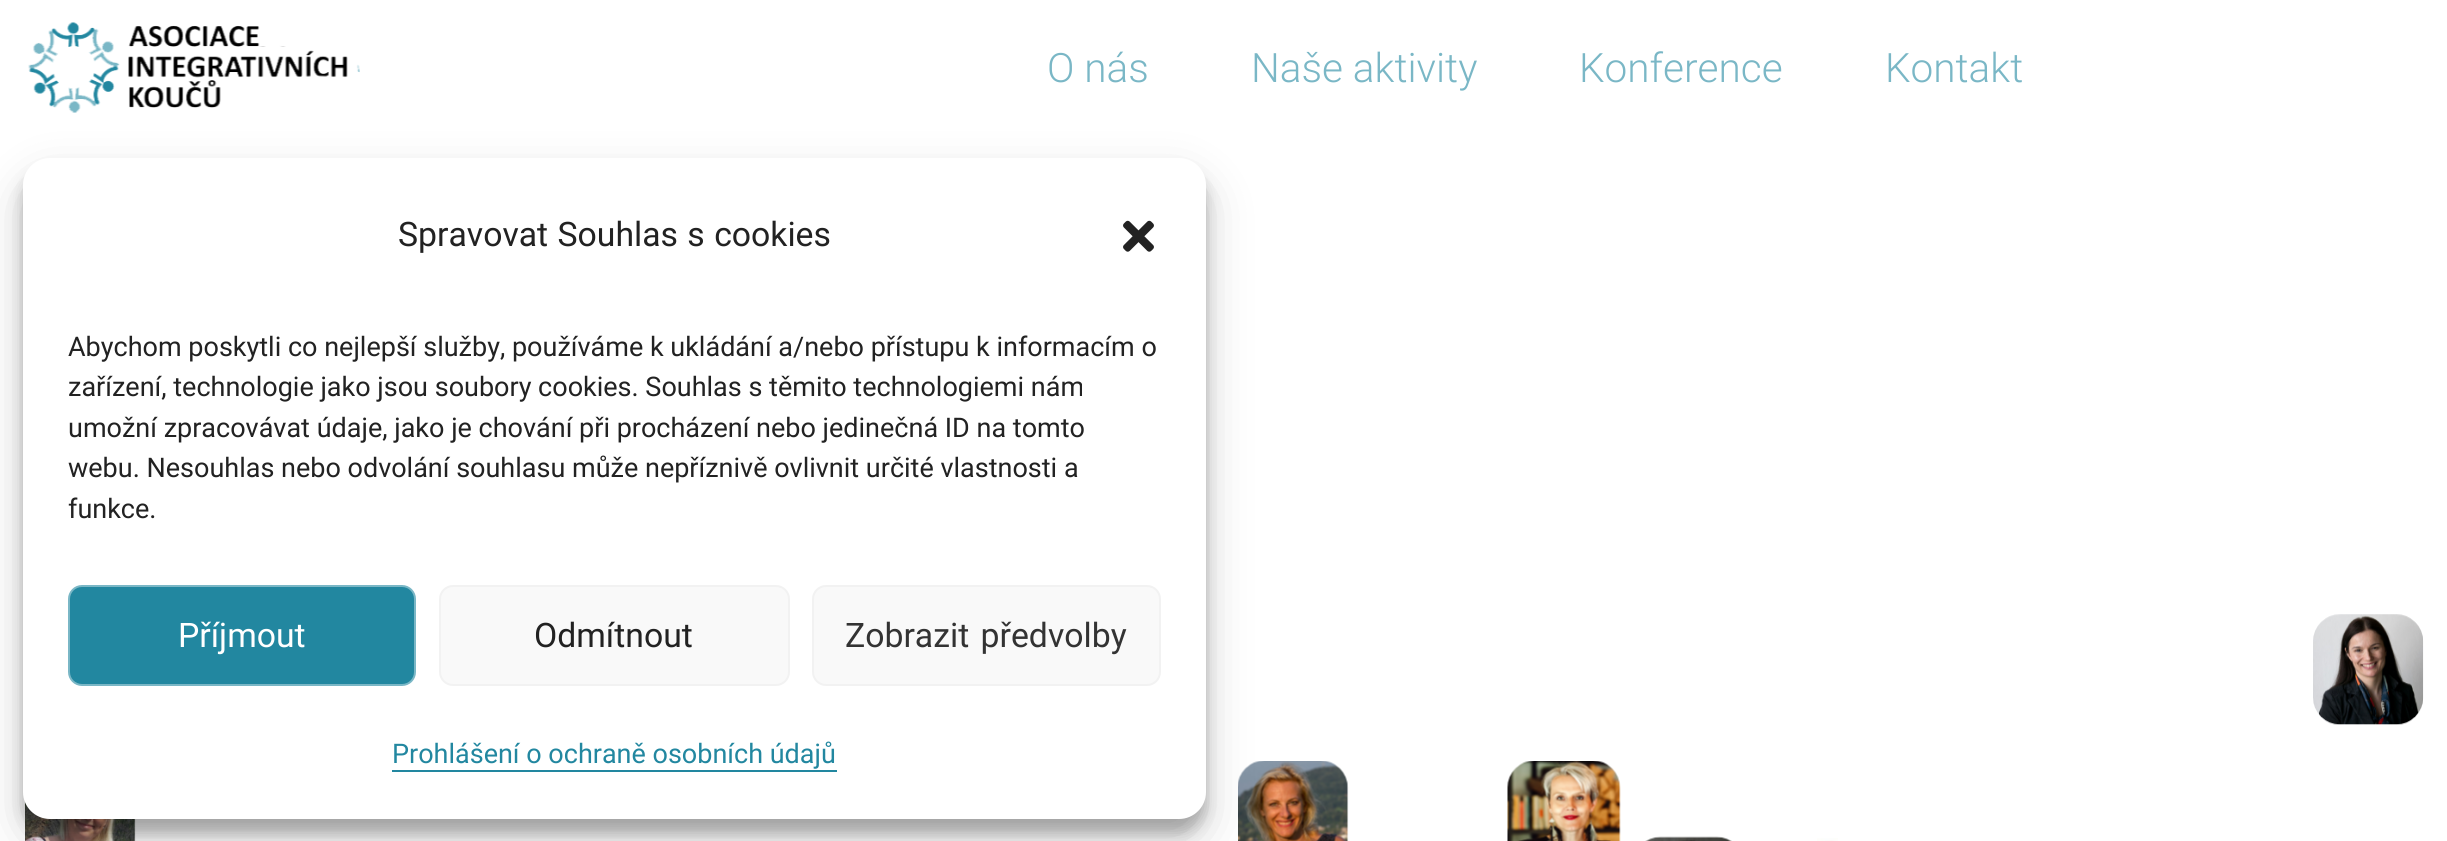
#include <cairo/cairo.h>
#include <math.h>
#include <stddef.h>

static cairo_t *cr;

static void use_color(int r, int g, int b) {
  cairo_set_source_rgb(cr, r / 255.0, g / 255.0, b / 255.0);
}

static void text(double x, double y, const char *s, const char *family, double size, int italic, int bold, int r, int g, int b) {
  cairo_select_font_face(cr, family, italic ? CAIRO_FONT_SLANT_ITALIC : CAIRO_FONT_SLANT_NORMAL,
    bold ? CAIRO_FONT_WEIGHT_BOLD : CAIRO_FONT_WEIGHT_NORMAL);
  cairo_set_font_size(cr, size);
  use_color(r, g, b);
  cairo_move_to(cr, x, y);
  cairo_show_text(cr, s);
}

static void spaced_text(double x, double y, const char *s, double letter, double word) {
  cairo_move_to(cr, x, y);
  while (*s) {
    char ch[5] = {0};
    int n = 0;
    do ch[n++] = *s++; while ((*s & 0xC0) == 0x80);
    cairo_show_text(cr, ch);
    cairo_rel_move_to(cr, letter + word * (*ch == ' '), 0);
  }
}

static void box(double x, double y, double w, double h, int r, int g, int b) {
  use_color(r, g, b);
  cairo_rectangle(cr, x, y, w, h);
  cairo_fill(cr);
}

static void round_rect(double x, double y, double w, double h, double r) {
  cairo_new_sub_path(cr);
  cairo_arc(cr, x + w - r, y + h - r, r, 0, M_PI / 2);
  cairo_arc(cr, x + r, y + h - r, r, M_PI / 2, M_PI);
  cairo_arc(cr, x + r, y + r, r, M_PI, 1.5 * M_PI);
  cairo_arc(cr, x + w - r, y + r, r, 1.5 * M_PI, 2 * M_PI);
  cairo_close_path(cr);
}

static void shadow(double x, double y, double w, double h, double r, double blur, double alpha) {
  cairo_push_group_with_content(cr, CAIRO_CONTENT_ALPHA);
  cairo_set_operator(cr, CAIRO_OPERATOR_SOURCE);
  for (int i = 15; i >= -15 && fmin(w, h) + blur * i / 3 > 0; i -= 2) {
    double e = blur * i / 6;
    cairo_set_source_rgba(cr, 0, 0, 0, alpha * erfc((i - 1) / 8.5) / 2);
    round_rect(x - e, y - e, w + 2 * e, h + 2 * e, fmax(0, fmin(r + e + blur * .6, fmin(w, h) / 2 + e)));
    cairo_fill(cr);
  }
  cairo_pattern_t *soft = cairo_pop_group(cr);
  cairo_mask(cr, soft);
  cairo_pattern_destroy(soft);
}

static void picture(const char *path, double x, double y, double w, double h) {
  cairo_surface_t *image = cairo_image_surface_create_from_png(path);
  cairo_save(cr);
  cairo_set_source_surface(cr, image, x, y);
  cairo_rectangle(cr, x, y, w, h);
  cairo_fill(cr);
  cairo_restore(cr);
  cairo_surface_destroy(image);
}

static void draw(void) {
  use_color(255, 255, 255);
  cairo_paint(cr);
  picture("img_01.png", 28, 22, 332, 91);
  picture("img_02.png", 25, 802, 111, 39);
  picture("img_03.png", 1238, 761, 111, 80);
  picture("img_04.png", 1507, 761, 114, 80);
  picture("img_05.png", 2313, 614, 111, 111);
  picture("img_06.png", 1645, 836, 87, 5);
  picture("img_07.png", 1817, 838, 21, 3);
  use_color(0, 0, 0);
  shadow(23, 171, 1183, 662, 27, 7, 0.23);
  shadow(23, 180, 1183, 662, 27, 22.5, 0.19);
  use_color(255, 255, 255);
  round_rect(23, 158, 1183, 661, 27);
  cairo_fill(cr);
  picture("img_08.png", 1123, 220, 31, 32);
  use_color(34, 135, 160);
  round_rect(69, 586, 346, 99, 13);
  cairo_fill_preserve(cr);
  use_color(122, 183, 198);
  cairo_stroke(cr);
  use_color(249, 249, 249);
  round_rect(440, 586, 349, 99, 13);
  cairo_fill_preserve(cr);
  use_color(242, 242, 242);
  cairo_stroke(cr);
  use_color(249, 249, 249);
  round_rect(813, 586, 347, 99, 13);
  cairo_fill_preserve(cr);
  use_color(242, 242, 242);
  cairo_stroke(cr);
  box(392, 770, 445, 2, 34, 135, 160);
  text(1047, 82, "O nás", "Roboto Light", 40.5, 0, 0, 122, 183, 198);
  text(1251, 82, "Naše aktivity", "Roboto Light", 40.5, 0, 0, 122, 183, 198);
  text(1579, 82, "Konference", "Roboto Light", 40.5, 0, 0, 122, 183, 198);
  text(1885, 82, "Kontakt", "Roboto Light", 40.5, 0, 0, 122, 183, 198);
  cairo_select_font_face(cr, "Roboto", CAIRO_FONT_SLANT_NORMAL, CAIRO_FONT_WEIGHT_NORMAL);
  cairo_set_font_size(cr, 33.75);
  use_color(34, 34, 34);
  spaced_text(398, 246, "Spravovat Souhlas s cookies", 0, 1);
  text(68, 356, "Abychom poskytli co nejlepší služby, používáme k ukládání a/nebo přístupu k informacím o", "Roboto", 27, 0, 0, 34, 34, 34);
  text(68, 396, "zařízení, technologie jako jsou soubory cookies. Souhlas s těmito technologiemi nám", "Roboto", 27, 0, 0, 34, 34, 34);
  text(68, 437, "umožní zpracovávat údaje, jako je chování při procházení nebo jedinečná ID na tomto", "Roboto", 27, 0, 0, 34, 34, 34);
  text(68, 477, "webu. Nesouhlas nebo odvolání souhlasu může nepříznivě ovlivnit určité vlastnosti a", "Roboto", 27, 0, 0, 34, 34, 34);
  text(68, 518, "funkce.", "Roboto", 27, 0, 0, 34, 34, 34);
  text(178, 647, "Příjmout", "Roboto", 33.75, 0, 0, 255, 255, 255);
  text(534, 647, "Odmítnout", "Roboto", 33.75, 0, 0, 34, 34, 34);
  use_color(51, 51, 51);
  spaced_text(845, 647, "Zobrazit předvolby", 0, 3);
  text(392, 763, "Prohlášení o ochraně osobních údajů", "Roboto", 27, 0, 0, 34, 135, 160);
}

int main(void) {
  cairo_surface_t *surface = cairo_image_surface_create(CAIRO_FORMAT_RGB24, 2447, 841);
  cr = cairo_create(surface);
  cairo_font_options_t *options = cairo_font_options_create();
  cairo_font_options_set_hint_metrics(options, CAIRO_HINT_METRICS_OFF);
  cairo_font_options_set_hint_style(options, CAIRO_HINT_STYLE_NONE);
  cairo_set_font_options(cr, options);
  cairo_set_miter_limit(cr, 4);
  draw();
  cairo_surface_write_to_png(surface, "out.png");
  cairo_font_options_destroy(options);
  cairo_destroy(cr);
  cairo_surface_destroy(surface);
  return 0;
}
